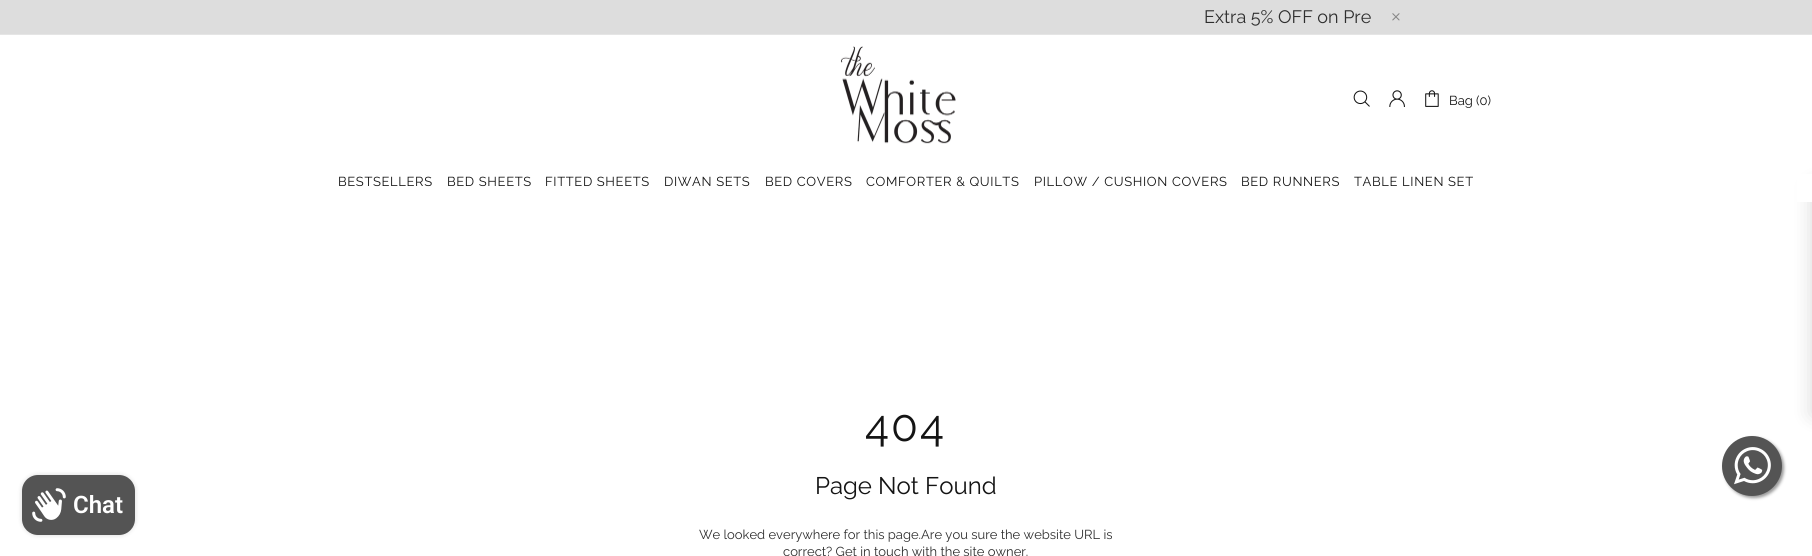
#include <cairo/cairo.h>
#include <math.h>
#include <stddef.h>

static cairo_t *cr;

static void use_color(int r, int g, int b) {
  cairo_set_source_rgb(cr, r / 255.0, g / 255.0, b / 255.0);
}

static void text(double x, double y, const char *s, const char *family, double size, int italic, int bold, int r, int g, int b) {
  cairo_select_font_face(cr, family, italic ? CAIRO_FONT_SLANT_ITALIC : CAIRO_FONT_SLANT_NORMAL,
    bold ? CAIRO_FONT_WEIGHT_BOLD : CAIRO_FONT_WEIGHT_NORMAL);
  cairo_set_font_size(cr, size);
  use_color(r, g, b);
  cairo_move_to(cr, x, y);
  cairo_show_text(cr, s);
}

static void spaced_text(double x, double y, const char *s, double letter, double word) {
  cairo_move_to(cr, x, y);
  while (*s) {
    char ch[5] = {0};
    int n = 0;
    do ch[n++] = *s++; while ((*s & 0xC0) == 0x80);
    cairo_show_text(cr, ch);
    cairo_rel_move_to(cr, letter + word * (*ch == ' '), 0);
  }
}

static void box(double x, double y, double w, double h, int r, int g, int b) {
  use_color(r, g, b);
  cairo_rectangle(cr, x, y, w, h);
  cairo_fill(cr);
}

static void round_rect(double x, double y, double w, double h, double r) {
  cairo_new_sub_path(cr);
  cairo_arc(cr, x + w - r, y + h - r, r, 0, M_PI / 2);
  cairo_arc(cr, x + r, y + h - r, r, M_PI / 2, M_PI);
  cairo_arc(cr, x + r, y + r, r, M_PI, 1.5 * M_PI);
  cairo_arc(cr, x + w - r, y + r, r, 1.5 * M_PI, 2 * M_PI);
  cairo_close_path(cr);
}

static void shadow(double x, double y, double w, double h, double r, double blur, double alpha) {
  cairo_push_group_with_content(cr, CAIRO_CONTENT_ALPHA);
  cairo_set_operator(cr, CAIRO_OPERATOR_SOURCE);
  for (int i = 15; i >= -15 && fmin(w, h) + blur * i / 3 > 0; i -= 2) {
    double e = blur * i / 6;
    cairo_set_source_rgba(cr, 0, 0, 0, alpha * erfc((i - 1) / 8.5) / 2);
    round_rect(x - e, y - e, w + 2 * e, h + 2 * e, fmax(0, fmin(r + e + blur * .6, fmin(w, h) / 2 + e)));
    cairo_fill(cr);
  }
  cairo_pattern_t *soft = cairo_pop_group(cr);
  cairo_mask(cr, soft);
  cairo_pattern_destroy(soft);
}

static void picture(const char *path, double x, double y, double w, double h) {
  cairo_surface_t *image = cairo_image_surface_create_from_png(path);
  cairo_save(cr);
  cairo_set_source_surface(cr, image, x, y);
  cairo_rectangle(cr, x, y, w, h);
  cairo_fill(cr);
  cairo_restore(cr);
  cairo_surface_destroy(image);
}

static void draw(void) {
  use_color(255, 255, 255);
  cairo_paint(cr);
  box(0, 0, 1812, 34, 221, 221, 221);
  box(0, 34, 1812, 1, 229, 229, 229);
  picture("img_01.png", 1392, 13, 8, 8);
  picture("img_02.png", 841, 46, 115, 98);
  picture("img_03.png", 1353, 90, 17, 17);
  picture("img_04.png", 1389, 90, 16, 17);
  picture("img_05.png", 1425, 90, 14, 17);
  use_color(0, 0, 0);
  shadow(1812, 185, 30, 230, 0, 10, 0.15);
  box(1797, 174, 15, 28, 255, 255, 255);
  use_color(0, 0, 0);
  shadow(22, 475, 113, 60, 16, 2.5, 0.15);
  use_color(84, 84, 84);
  round_rect(22, 475, 113, 60, 16);
  cairo_fill(cr);
  picture("img_06.png", 32, 488, 34, 34);
  use_color(153, 153, 153);
  shadow(1724, 438, 60, 60, 30, 1.5, 1);
  use_color(84, 84, 84);
  cairo_arc(cr, 1752, 466, 30, 0, 2 * M_PI);
  cairo_fill(cr);
  picture("img_07.png", 1734, 447, 37, 38);
  text(1204, 23, "Extra 5% OFF on Pre", "Raleway", 18, 0, 0, 46, 46, 46);
  text(1449, 105, "Bag (0)", "Raleway", 13, 0, 0, 20, 20, 20);
  spaced_text(338, 186, "BESTSELLERS", 0.65, 0);
  spaced_text(447, 186, "BED SHEETS", 0.65, 0);
  spaced_text(545, 186, "FITTED SHEETS", 0.65, 0);
  spaced_text(664, 186, "DIWAN SETS", 0.65, 0);
  spaced_text(765, 186, "BED COVERS", 0.65, 0);
  spaced_text(866, 186, "COMFORTER & QUILTS", 0.65, 0);
  spaced_text(1034, 186, "PILLOW / CUSHION COVERS", 0.65, 0);
  spaced_text(1241, 186, "BED RUNNERS", 0.65, 0);
  spaced_text(1354, 186, "TABLE LINEN SET", 0.65, 0);
  text(73, 513, "Chat", "Roboto SemiBold", 24, 0, 0, 255, 255, 255);
  cairo_select_font_face(cr, "Raleway", CAIRO_FONT_SLANT_NORMAL, CAIRO_FONT_WEIGHT_NORMAL);
  cairo_set_font_size(cr, 44);
  use_color(20, 20, 20);
  spaced_text(865, 441, "404", 2, 0);
  text(815, 494, "Page Not Found", "Raleway", 24, 0, 0, 20, 20, 20);
  text(699, 539, "We looked everywhere for this page.Are you sure the website URL is", "Raleway", 13, 0, 0, 46, 46, 46);
  text(783, 556, "correct? Get in touch with the site owner.", "Raleway", 13, 0, 0, 46, 46, 46);
}

int main(void) {
  cairo_surface_t *surface = cairo_image_surface_create(CAIRO_FORMAT_RGB24, 1812, 556);
  cr = cairo_create(surface);
  cairo_font_options_t *options = cairo_font_options_create();
  cairo_font_options_set_hint_metrics(options, CAIRO_HINT_METRICS_OFF);
  cairo_font_options_set_hint_style(options, CAIRO_HINT_STYLE_NONE);
  cairo_set_font_options(cr, options);
  cairo_set_miter_limit(cr, 4);
  draw();
  cairo_surface_write_to_png(surface, "out.png");
  cairo_font_options_destroy(options);
  cairo_destroy(cr);
  cairo_surface_destroy(surface);
  return 0;
}
